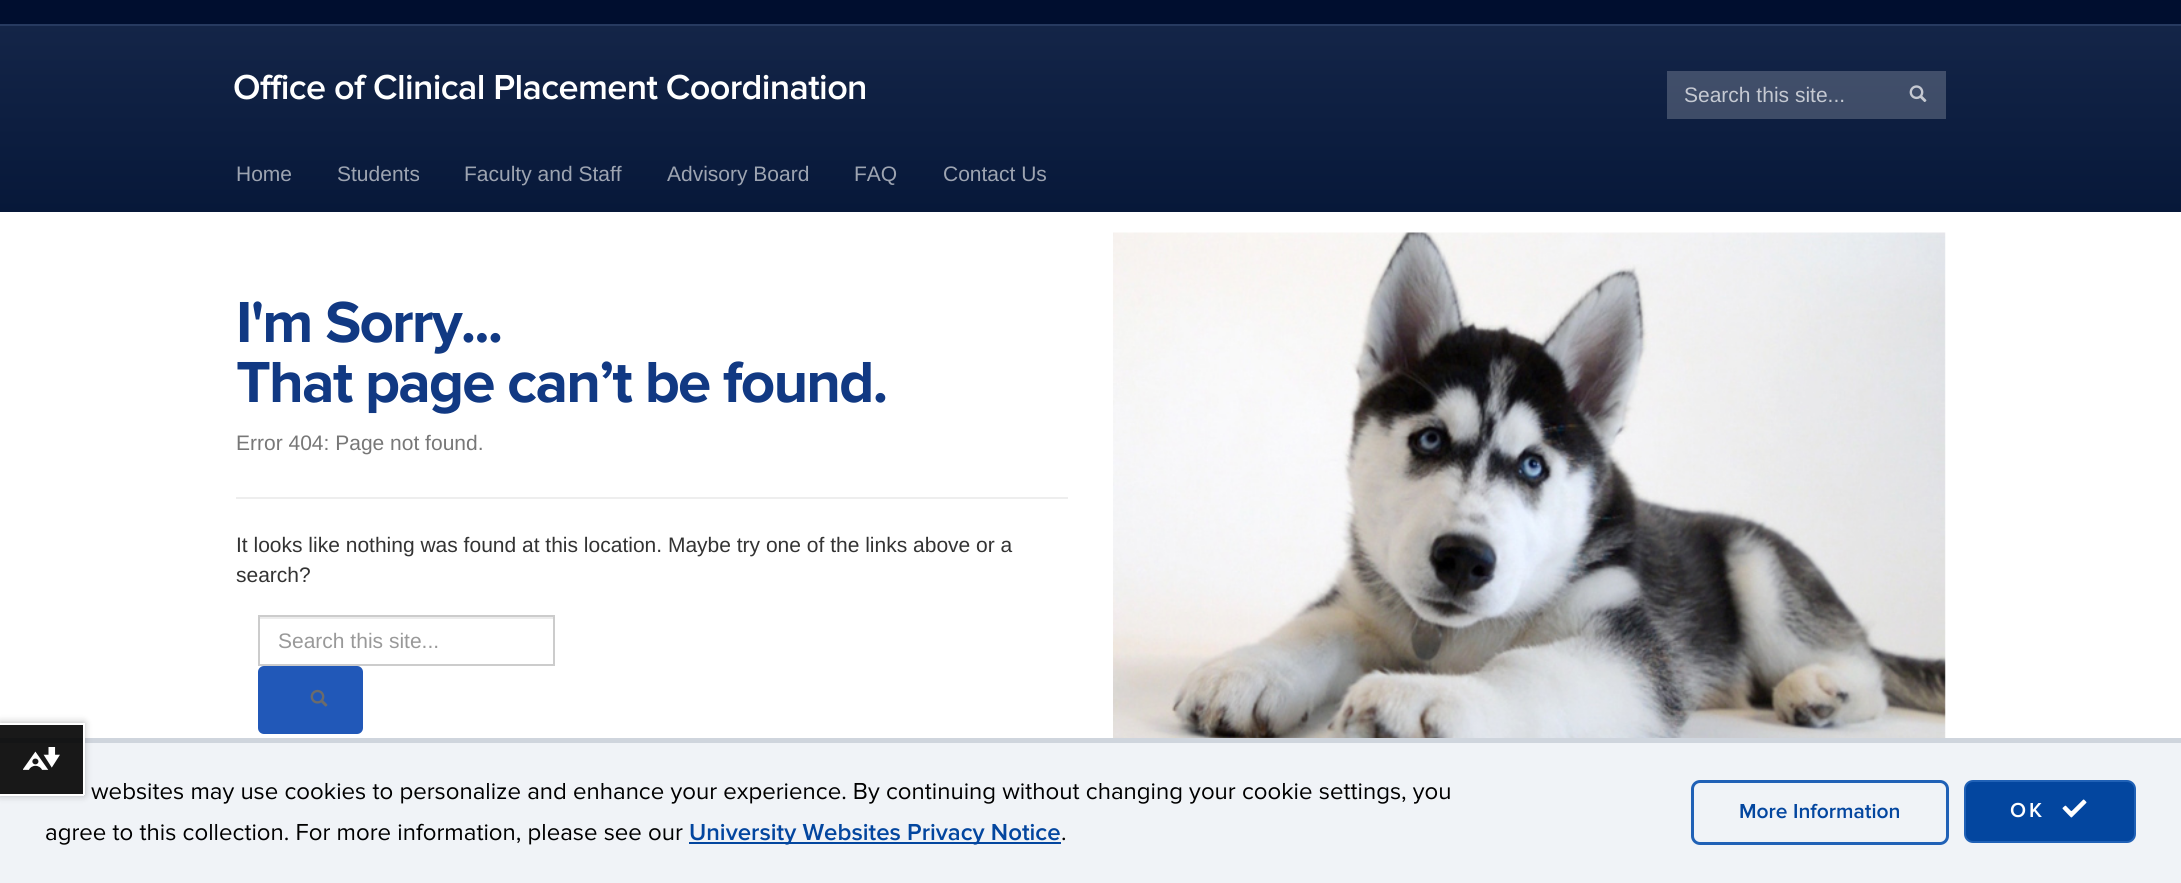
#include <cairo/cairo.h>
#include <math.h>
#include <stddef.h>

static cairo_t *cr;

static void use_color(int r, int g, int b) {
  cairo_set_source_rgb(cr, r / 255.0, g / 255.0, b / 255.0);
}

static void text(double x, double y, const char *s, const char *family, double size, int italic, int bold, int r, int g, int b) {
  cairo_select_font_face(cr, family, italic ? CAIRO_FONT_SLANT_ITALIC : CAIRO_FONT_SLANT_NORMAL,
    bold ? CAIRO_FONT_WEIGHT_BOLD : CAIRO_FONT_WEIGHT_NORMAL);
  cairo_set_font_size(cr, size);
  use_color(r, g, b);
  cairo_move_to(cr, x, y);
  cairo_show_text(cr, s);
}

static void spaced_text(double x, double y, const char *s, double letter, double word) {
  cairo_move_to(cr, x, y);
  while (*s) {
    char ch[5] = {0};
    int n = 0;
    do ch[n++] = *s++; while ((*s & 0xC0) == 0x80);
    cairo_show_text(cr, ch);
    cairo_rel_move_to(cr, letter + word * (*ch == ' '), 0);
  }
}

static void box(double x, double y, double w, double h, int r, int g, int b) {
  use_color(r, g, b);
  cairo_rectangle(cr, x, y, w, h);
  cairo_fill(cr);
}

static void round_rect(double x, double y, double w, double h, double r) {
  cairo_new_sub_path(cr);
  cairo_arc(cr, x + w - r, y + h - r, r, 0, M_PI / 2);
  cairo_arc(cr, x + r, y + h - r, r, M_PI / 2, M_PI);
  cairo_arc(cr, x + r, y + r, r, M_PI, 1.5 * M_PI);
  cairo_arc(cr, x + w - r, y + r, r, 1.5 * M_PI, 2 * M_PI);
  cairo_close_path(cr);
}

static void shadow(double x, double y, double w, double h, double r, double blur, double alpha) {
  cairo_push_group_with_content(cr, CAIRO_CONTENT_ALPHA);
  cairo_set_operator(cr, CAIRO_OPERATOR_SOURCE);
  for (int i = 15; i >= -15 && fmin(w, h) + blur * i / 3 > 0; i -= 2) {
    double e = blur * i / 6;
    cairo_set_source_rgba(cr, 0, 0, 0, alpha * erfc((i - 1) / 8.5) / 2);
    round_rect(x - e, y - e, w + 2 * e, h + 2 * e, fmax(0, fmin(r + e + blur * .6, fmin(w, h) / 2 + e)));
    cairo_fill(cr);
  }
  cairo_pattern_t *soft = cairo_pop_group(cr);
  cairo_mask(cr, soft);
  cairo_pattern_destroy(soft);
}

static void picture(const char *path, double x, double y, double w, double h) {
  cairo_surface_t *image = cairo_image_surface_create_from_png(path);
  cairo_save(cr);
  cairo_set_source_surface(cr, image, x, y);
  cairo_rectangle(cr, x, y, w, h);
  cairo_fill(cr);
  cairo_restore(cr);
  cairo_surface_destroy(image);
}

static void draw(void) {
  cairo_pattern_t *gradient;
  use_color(255, 255, 255);
  cairo_paint(cr);
  box(0, 0, 2181, 24, 0, 14, 47);
  box(0, 24, 2181, 2, 39, 58, 96);
  gradient = cairo_pattern_create_linear(1091, 25, 1091, 212);
  cairo_pattern_add_color_stop_rgba(gradient, 0, 0.078, 0.145, 0.282, 1);
  cairo_pattern_add_color_stop_rgba(gradient, 1, 0.027, 0.094, 0.224, 1);
  cairo_set_source(cr, gradient);
  cairo_pattern_destroy(gradient);
  cairo_rectangle(cr, 0, 26, 2181, 186);
  cairo_fill(cr);
  gradient = cairo_pattern_create_linear(1091, 25, 1091, 212);
  cairo_pattern_add_color_stop_rgba(gradient, 0, 0.263, 0.318, 0.427, 1);
  cairo_pattern_add_color_stop_rgba(gradient, 1, 0.224, 0.275, 0.38, 1);
  cairo_set_source(cr, gradient);
  cairo_pattern_destroy(gradient);
  cairo_rectangle(cr, 1892, 71, 54, 48);
  cairo_fill(cr);
  cairo_rectangle(cr, 1667, 71, 225, 48);
  cairo_fill(cr);
  picture("img_01.png", 1909, 85, 18, 17);
  box(236, 497, 832, 2, 238, 238, 238);
  box(260, 617, 294, 2, 236, 236, 236);
  cairo_rectangle(cr, 259, 616, 295, 49);
  use_color(204, 204, 204);
  cairo_stroke(cr);
  use_color(33, 88, 184);
  round_rect(258, 666, 105, 68, 6);
  cairo_fill(cr);
  picture("img_02.png", 310, 689, 18, 18);
  picture("img_03.png", 1113, 232, 833, 506);
  box(0, 743, 2181, 140, 240, 243, 247);
  box(0, 738, 2181, 5, 207, 213, 221);
  cairo_save(cr);
  cairo_set_fill_rule(cr, CAIRO_FILL_RULE_EVEN_ODD);
  cairo_new_path(cr);
  cairo_move_to(cr, 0, 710);
  cairo_line_to(cr, 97, 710);
  cairo_line_to(cr, 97, 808);
  cairo_line_to(cr, 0, 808);
  cairo_close_path(cr);
  cairo_move_to(cr, 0, 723);
  cairo_line_to(cr, 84, 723);
  cairo_line_to(cr, 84, 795);
  cairo_line_to(cr, 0, 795);
  cairo_close_path(cr);
  cairo_clip(cr);
  use_color(0, 0, 0);
  shadow(0, 723, 84, 72, 0, 4, 0.3);
  cairo_restore(cr);
  cairo_set_source_rgba(cr, 0, 0, 0, 0.9);
  cairo_rectangle(cr, 0, 725, 83, 69);
  cairo_fill(cr);
  box(83, 723, 2, 72, 255, 255, 255);
  box(0, 794, 84, 2, 255, 255, 255);
  picture("img_04.png", 23, 747, 37, 23);
  box(689, 842, 372, 2, 3, 70, 159);
  round_rect(1692.5, 781.5, 255, 62, 7.5);
  use_color(32, 97, 182);
  cairo_set_line_width(cr, 3);
  cairo_stroke(cr);
  use_color(3, 70, 159);
  round_rect(1965, 781, 170, 61, 8);
  cairo_fill_preserve(cr);
  use_color(32, 97, 182);
  cairo_set_line_width(cr, 2);
  cairo_stroke(cr);
  picture("img_05.png", 2062, 799, 25, 19);
  cairo_select_font_face(cr, "Proxima Nova SemiBold", CAIRO_FONT_SLANT_NORMAL, CAIRO_FONT_WEIGHT_NORMAL);
  cairo_set_font_size(cr, 36);
  use_color(255, 255, 255);
  spaced_text(233, 99, "Office of Clinical Placement Coordination", -0.65, 0);
  text(1684, 102, "Search this site...", "Liberation Sans", 21, 0, 0, 197, 201, 210);
  text(236, 181, "Home", "Liberation Sans", 21, 0, 0, 157, 164, 177);
  text(337, 181, "Students", "Liberation Sans", 21, 0, 0, 157, 164, 177);
  text(464, 181, "Faculty and Staff", "Liberation Sans", 21, 0, 0, 157, 164, 177);
  text(667, 181, "Advisory Board", "Liberation Sans", 21, 0, 0, 157, 164, 177);
  text(854, 181, "FAQ", "Liberation Sans", 21, 0, 0, 157, 164, 177);
  text(943, 181, "Contact Us", "Liberation Sans", 21, 0, 0, 157, 164, 177);
  cairo_select_font_face(cr, "proxima nova", CAIRO_FONT_SLANT_NORMAL, CAIRO_FONT_WEIGHT_BOLD);
  cairo_set_font_size(cr, 60);
  use_color(17, 57, 131);
  spaced_text(236, 342, "I'm Sorry...", -1.8, 0);
  spaced_text(236, 402, "That page can’t be found.", -1.8, 0);
  text(236, 450, "Error 404: Page not found.", "Liberation Sans", 21, 0, 0, 119, 119, 119);
  text(236, 552, "It looks like nothing was found at this location. Maybe try one of the links above or a", "Liberation Sans", 21, 0, 0, 51, 51, 51);
  text(236, 582, "search?", "Liberation Sans", 21, 0, 0, 51, 51, 51);
  text(278, 648, "Search this site...", "Liberation Sans", 21, 0, 0, 153, 153, 153);
  text(91, 799, "websites may use cookies to personalize and enhance your experience. By continuing without changing your cookie settings, you", "Proxima Nova", 24, 0, 0, 0, 0, 0);
  text(45, 840, "agree to this collection. For more information, please see our", "Proxima Nova", 24, 0, 0, 0, 0, 0);
  text(689, 840, "University Websites Privacy Notice", "Proxima Nova SemiBold", 24, 0, 0, 3, 70, 159);
  text(1061, 840, ".", "Proxima Nova", 24, 0, 0, 0, 0, 0);
  text(1739, 818, "More Information", "Proxima Nova SemiBold", 21, 0, 0, 3, 70, 159);
  use_color(255, 255, 255);
  spaced_text(2010, 817, "OK", 3, 0);
}

int main(void) {
  cairo_surface_t *surface = cairo_image_surface_create(CAIRO_FORMAT_RGB24, 2181, 883);
  cr = cairo_create(surface);
  cairo_font_options_t *options = cairo_font_options_create();
  cairo_font_options_set_hint_metrics(options, CAIRO_HINT_METRICS_OFF);
  cairo_font_options_set_hint_style(options, CAIRO_HINT_STYLE_NONE);
  cairo_set_font_options(cr, options);
  cairo_set_miter_limit(cr, 4);
  draw();
  cairo_surface_write_to_png(surface, "out.png");
  cairo_font_options_destroy(options);
  cairo_destroy(cr);
  cairo_surface_destroy(surface);
  return 0;
}
